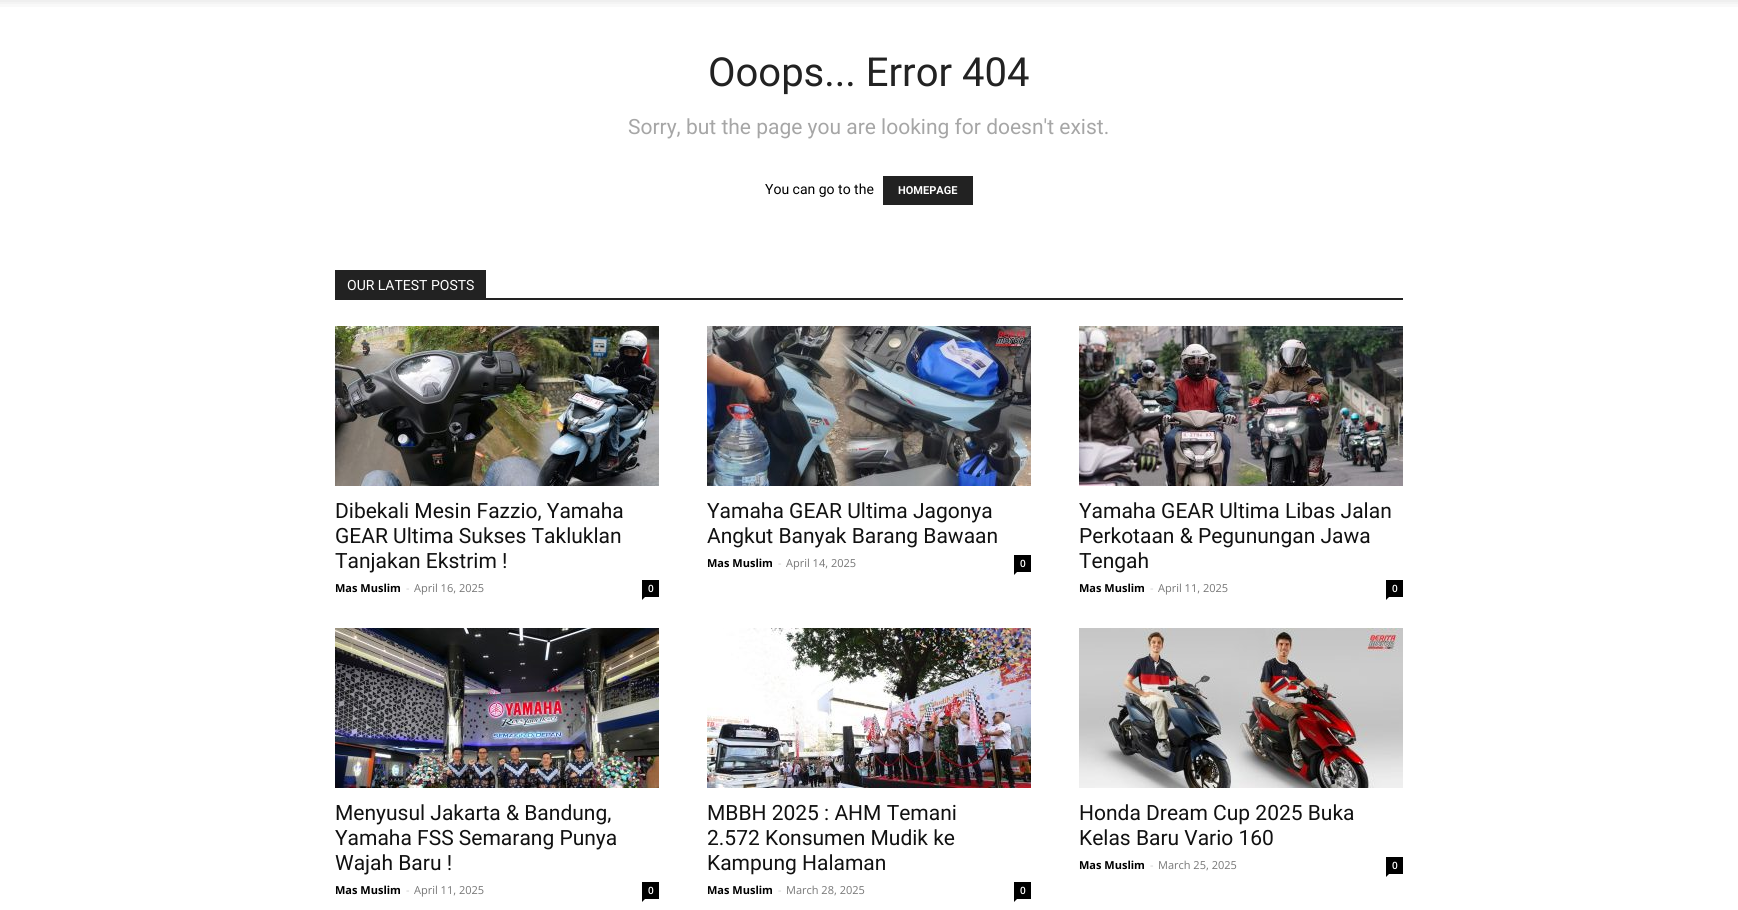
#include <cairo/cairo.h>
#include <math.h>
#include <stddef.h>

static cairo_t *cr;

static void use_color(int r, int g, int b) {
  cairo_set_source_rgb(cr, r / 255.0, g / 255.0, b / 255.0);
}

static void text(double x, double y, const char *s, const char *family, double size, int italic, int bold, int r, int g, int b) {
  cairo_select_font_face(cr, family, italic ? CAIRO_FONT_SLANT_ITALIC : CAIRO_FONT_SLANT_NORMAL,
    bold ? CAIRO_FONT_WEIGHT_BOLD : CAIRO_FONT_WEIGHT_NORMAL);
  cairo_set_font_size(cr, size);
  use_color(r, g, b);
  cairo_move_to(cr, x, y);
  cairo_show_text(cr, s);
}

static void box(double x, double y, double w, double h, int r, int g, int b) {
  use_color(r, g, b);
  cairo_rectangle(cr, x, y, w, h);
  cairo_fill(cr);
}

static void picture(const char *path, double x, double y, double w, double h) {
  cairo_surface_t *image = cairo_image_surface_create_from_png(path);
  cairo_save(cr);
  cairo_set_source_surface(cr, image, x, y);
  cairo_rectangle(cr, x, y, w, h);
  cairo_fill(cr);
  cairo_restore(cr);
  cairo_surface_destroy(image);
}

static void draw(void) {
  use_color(255, 255, 255);
  cairo_paint(cr);
  picture("img_01.png", 0, 0, 1738, 7);
  box(883, 176, 90, 29, 34, 34, 34);
  box(335, 298, 1068, 2, 34, 34, 34);
  box(335, 270, 151, 28, 34, 34, 34);
  picture("img_02.png", 335, 326, 324, 160);
  box(642, 580, 17, 17, 0, 0, 0);
  cairo_new_path(cr);
  cairo_move_to(cr, 642, 597);
  cairo_line_to(cr, 645, 597);
  cairo_line_to(cr, 642, 600);
  cairo_close_path(cr);
  cairo_fill(cr);
  picture("img_03.png", 707, 326, 324, 160);
  box(1014, 555, 17, 17, 0, 0, 0);
  cairo_new_path(cr);
  cairo_move_to(cr, 1014, 572);
  cairo_line_to(cr, 1017, 572);
  cairo_line_to(cr, 1014, 575);
  cairo_close_path(cr);
  cairo_fill(cr);
  picture("img_04.png", 1079, 326, 324, 160);
  box(1386, 580, 17, 17, 0, 0, 0);
  cairo_new_path(cr);
  cairo_move_to(cr, 1386, 597);
  cairo_line_to(cr, 1389, 597);
  cairo_line_to(cr, 1386, 600);
  cairo_close_path(cr);
  cairo_fill(cr);
  picture("img_05.png", 335, 628, 324, 160);
  box(642, 882, 17, 17, 0, 0, 0);
  cairo_new_path(cr);
  cairo_move_to(cr, 642, 899);
  cairo_line_to(cr, 645, 899);
  cairo_line_to(cr, 642, 902);
  cairo_close_path(cr);
  cairo_fill(cr);
  picture("img_06.png", 707, 628, 324, 160);
  box(1014, 882, 17, 17, 0, 0, 0);
  cairo_new_path(cr);
  cairo_move_to(cr, 1014, 899);
  cairo_line_to(cr, 1017, 899);
  cairo_line_to(cr, 1014, 902);
  cairo_close_path(cr);
  cairo_fill(cr);
  picture("img_07.png", 1079, 628, 324, 160);
  box(1386, 857, 17, 17, 0, 0, 0);
  cairo_new_path(cr);
  cairo_move_to(cr, 1386, 874);
  cairo_line_to(cr, 1389, 874);
  cairo_line_to(cr, 1386, 877);
  cairo_close_path(cr);
  cairo_fill(cr);
  text(708, 86, "Ooops... Error 404", "Roboto", 40, 0, 0, 34, 34, 34);
  text(628, 134, "Sorry, but the page you are looking for doesn't exist.", "Roboto", 21, 0, 0, 166, 166, 166);
  text(765, 194, "You can go to the", "Roboto", 14, 0, 0, 0, 0, 0);
  text(898, 194, "HOMEPAGE", "Roboto", 11, 0, 1, 255, 255, 255);
  text(347, 290, "OUR LATEST POSTS", "Roboto", 14, 0, 0, 255, 255, 255);
  text(335, 518, "Dibekali Mesin Fazzio, Yamaha", "Roboto", 21, 0, 0, 17, 17, 17);
  text(335, 543, "GEAR Ultima Sukses Takluklan", "Roboto", 21, 0, 0, 17, 17, 17);
  text(335, 568, "Tanjakan Ekstrim !", "Roboto", 21, 0, 0, 17, 17, 17);
  text(335, 592, "Mas Muslim", "Open Sans", 11, 0, 1, 0, 0, 0);
  text(406, 592, "-", "Open Sans", 11, 0, 0, 204, 204, 204);
  text(414, 592, "April 16, 2025", "Open Sans", 11, 0, 0, 118, 118, 118);
  text(648, 592, "0", "Open Sans SemiBold", 10, 0, 0, 255, 255, 255);
  text(707, 518, "Yamaha GEAR Ultima Jagonya", "Roboto", 21, 0, 0, 17, 17, 17);
  text(707, 543, "Angkut Banyak Barang Bawaan", "Roboto", 21, 0, 0, 17, 17, 17);
  text(707, 567, "Mas Muslim", "Open Sans", 11, 0, 1, 0, 0, 0);
  text(778, 567, "-", "Open Sans", 11, 0, 0, 204, 204, 204);
  text(786, 567, "April 14, 2025", "Open Sans", 11, 0, 0, 118, 118, 118);
  text(1020, 567, "0", "Open Sans SemiBold", 10, 0, 0, 255, 255, 255);
  text(1079, 518, "Yamaha GEAR Ultima Libas Jalan", "Roboto", 21, 0, 0, 17, 17, 17);
  text(1079, 543, "Perkotaan & Pegunungan Jawa", "Roboto", 21, 0, 0, 17, 17, 17);
  text(1079, 568, "Tengah", "Roboto", 21, 0, 0, 17, 17, 17);
  text(1079, 592, "Mas Muslim", "Open Sans", 11, 0, 1, 0, 0, 0);
  text(1150, 592, "-", "Open Sans", 11, 0, 0, 204, 204, 204);
  text(1158, 592, "April 11, 2025", "Open Sans", 11, 0, 0, 118, 118, 118);
  text(1392, 592, "0", "Open Sans SemiBold", 10, 0, 0, 255, 255, 255);
  text(335, 820, "Menyusul Jakarta & Bandung,", "Roboto", 21, 0, 0, 17, 17, 17);
  text(335, 845, "Yamaha FSS Semarang Punya", "Roboto", 21, 0, 0, 17, 17, 17);
  text(335, 870, "Wajah Baru !", "Roboto", 21, 0, 0, 17, 17, 17);
  text(335, 894, "Mas Muslim", "Open Sans", 11, 0, 1, 0, 0, 0);
  text(406, 894, "-", "Open Sans", 11, 0, 0, 204, 204, 204);
  text(414, 894, "April 11, 2025", "Open Sans", 11, 0, 0, 118, 118, 118);
  text(648, 894, "0", "Open Sans SemiBold", 10, 0, 0, 255, 255, 255);
  text(707, 820, "MBBH 2025 : AHM Temani", "Roboto", 21, 0, 0, 17, 17, 17);
  text(707, 845, "2.572 Konsumen Mudik ke", "Roboto", 21, 0, 0, 17, 17, 17);
  text(707, 870, "Kampung Halaman", "Roboto", 21, 0, 0, 17, 17, 17);
  text(707, 894, "Mas Muslim", "Open Sans", 11, 0, 1, 0, 0, 0);
  text(778, 894, "-", "Open Sans", 11, 0, 0, 204, 204, 204);
  text(786, 894, "March 28, 2025", "Open Sans", 11, 0, 0, 118, 118, 118);
  text(1020, 894, "0", "Open Sans SemiBold", 10, 0, 0, 255, 255, 255);
  text(1079, 820, "Honda Dream Cup 2025 Buka", "Roboto", 21, 0, 0, 17, 17, 17);
  text(1079, 845, "Kelas Baru Vario 160", "Roboto", 21, 0, 0, 17, 17, 17);
  text(1079, 869, "Mas Muslim", "Open Sans", 11, 0, 1, 0, 0, 0);
  text(1150, 869, "-", "Open Sans", 11, 0, 0, 204, 204, 204);
  text(1158, 869, "March 25, 2025", "Open Sans", 11, 0, 0, 118, 118, 118);
  text(1392, 869, "0", "Open Sans SemiBold", 10, 0, 0, 255, 255, 255);
}

int main(void) {
  cairo_surface_t *surface = cairo_image_surface_create(CAIRO_FORMAT_RGB24, 1738, 910);
  cr = cairo_create(surface);
  cairo_font_options_t *options = cairo_font_options_create();
  cairo_font_options_set_hint_metrics(options, CAIRO_HINT_METRICS_OFF);
  cairo_font_options_set_hint_style(options, CAIRO_HINT_STYLE_NONE);
  cairo_set_font_options(cr, options);
  cairo_set_miter_limit(cr, 4);
  draw();
  cairo_surface_write_to_png(surface, "out.png");
  cairo_font_options_destroy(options);
  cairo_destroy(cr);
  cairo_surface_destroy(surface);
  return 0;
}
